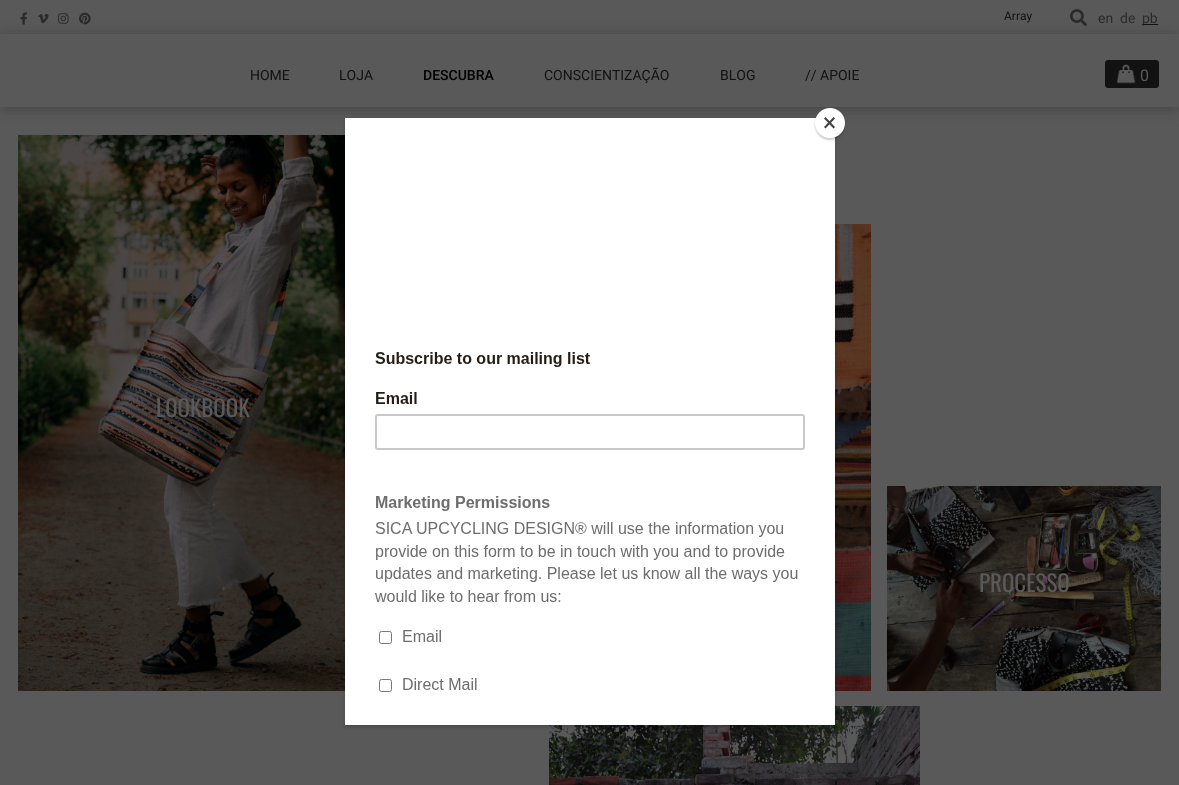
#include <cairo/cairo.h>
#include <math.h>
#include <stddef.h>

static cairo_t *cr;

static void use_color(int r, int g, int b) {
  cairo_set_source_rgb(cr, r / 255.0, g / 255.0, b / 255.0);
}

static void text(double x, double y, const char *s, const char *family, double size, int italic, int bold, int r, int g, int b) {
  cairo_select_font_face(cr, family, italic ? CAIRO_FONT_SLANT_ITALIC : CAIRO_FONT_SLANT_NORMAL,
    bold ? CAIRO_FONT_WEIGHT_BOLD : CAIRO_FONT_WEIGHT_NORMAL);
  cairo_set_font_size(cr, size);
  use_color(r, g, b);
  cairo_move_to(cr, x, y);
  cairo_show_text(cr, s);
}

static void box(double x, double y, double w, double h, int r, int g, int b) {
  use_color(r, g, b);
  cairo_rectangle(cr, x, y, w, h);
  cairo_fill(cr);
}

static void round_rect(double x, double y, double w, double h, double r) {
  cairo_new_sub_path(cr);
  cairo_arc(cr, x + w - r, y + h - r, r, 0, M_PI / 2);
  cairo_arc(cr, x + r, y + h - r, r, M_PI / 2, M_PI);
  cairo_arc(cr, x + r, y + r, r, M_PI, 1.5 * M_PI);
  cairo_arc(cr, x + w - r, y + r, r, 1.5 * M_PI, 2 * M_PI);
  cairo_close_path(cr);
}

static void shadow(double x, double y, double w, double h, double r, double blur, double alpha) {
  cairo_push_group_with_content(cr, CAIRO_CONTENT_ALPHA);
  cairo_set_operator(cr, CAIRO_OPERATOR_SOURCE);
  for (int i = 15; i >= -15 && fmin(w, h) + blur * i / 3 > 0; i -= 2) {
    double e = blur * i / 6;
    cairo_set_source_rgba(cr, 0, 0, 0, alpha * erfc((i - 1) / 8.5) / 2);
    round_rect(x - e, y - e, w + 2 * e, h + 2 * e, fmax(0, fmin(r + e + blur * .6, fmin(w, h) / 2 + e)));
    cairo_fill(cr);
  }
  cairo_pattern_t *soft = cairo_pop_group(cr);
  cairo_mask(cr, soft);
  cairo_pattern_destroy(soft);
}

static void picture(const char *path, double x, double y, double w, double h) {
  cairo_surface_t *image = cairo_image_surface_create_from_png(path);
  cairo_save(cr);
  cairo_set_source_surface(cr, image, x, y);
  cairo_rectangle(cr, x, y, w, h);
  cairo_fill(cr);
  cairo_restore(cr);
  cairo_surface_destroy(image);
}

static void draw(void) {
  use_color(89, 89, 89);
  cairo_paint(cr);
  cairo_save(cr);
  cairo_set_fill_rule(cr, CAIRO_FILL_RULE_EVEN_ODD);
  cairo_new_path(cr);
  cairo_move_to(cr, 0, 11);
  cairo_line_to(cr, 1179, 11);
  cairo_line_to(cr, 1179, 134);
  cairo_line_to(cr, 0, 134);
  cairo_close_path(cr);
  cairo_move_to(cr, 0, 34);
  cairo_line_to(cr, 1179, 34);
  cairo_line_to(cr, 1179, 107);
  cairo_line_to(cr, 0, 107);
  cairo_close_path(cr);
  cairo_clip(cr);
  use_color(55, 53, 55);
  shadow(5, 41, 1169, 63, 0, 9.5, 1);
  cairo_restore(cr);
  picture("img_01.png", 20, 12, 7, 13);
  picture("img_02.png", 38, 14, 11, 10);
  picture("img_03.png", 58, 13, 11, 11);
  picture("img_04.png", 79, 12, 12, 13);
  picture("img_05.png", 1070, 9, 17, 18);
  use_color(18, 18, 18);
  round_rect(1105, 60, 54, 28, 3);
  cairo_fill(cr);
  picture("img_06.png", 1116, 64, 20, 20);
  box(1142, 24, 16, 1, 18, 18, 18);
  picture("img_07.png", 18, 135, 327, 556);
  picture("img_08.png", 835, 224, 36, 467);
  picture("img_09.png", 887, 486, 274, 205);
  picture("img_10.png", 549, 706, 371, 79);
  use_color(0, 0, 0);
  shadow(345, 120, 490, 607, 0, 2, 0.2);
  picture("img_11.png", 345, 118, 490, 607);
  shadow(815, 110, 30, 30, 15, 1, 0.2);
  use_color(255, 255, 255);
  cairo_arc(cr, 830, 123, 15, 0, 2 * M_PI);
  cairo_fill(cr);
  use_color(65, 65, 65);
  cairo_new_path(cr);
  cairo_move_to(cr, 833.5, 117);
  cairo_line_to(cr, 835, 118.5);
  cairo_line_to(cr, 825.5, 128.5);
  cairo_line_to(cr, 824, 127);
  cairo_close_path(cr);
  cairo_fill(cr);
  cairo_new_path(cr);
  cairo_move_to(cr, 824, 118.5);
  cairo_line_to(cr, 825.5, 117);
  cairo_line_to(cr, 835, 127);
  cairo_line_to(cr, 833.5, 128.5);
  cairo_close_path(cr);
  cairo_fill(cr);
  text(250, 80, "HOME", "Roboto", 14, 0, 0, 18, 18, 18);
  text(339, 80, "LOJA", "Roboto", 14, 0, 0, 18, 18, 18);
  text(423, 80, "DESCUBRA", "Roboto Medium", 14, 0, 0, 0, 0, 0);
  text(544, 80, "CONSCIENTIZAÇÃO", "Roboto", 14, 0, 0, 18, 18, 18);
  text(720, 80, "BLOG", "Roboto", 14, 0, 0, 18, 18, 18);
  text(805, 80, "// APOIE", "Roboto", 14, 0, 0, 18, 18, 18);
  text(1004, 20, "Array", "Roboto", 12, 0, 0, 18, 18, 18);
  text(1140, 81, "0", "Roboto", 16, 0, 0, 89, 89, 89);
  text(1098, 23, "en", "Roboto", 14, 0, 0, 42, 42, 42);
  text(1120, 23, "de", "Roboto", 14, 0, 0, 42, 42, 42);
  text(1142, 23, "pb", "Roboto", 14, 0, 0, 42, 42, 42);
  text(156, 417, "LOOKBOOK", "Oswald", 23, 0, 0, 89, 89, 89);
  text(979, 592, "PROCESSO", "Oswald", 23, 0, 0, 89, 89, 89);
}

int main(void) {
  cairo_surface_t *surface = cairo_image_surface_create(CAIRO_FORMAT_RGB24, 1179, 785);
  cr = cairo_create(surface);
  cairo_font_options_t *options = cairo_font_options_create();
  cairo_font_options_set_hint_metrics(options, CAIRO_HINT_METRICS_OFF);
  cairo_font_options_set_hint_style(options, CAIRO_HINT_STYLE_NONE);
  cairo_set_font_options(cr, options);
  cairo_set_miter_limit(cr, 4);
  draw();
  cairo_surface_write_to_png(surface, "out.png");
  cairo_font_options_destroy(options);
  cairo_destroy(cr);
  cairo_surface_destroy(surface);
  return 0;
}
